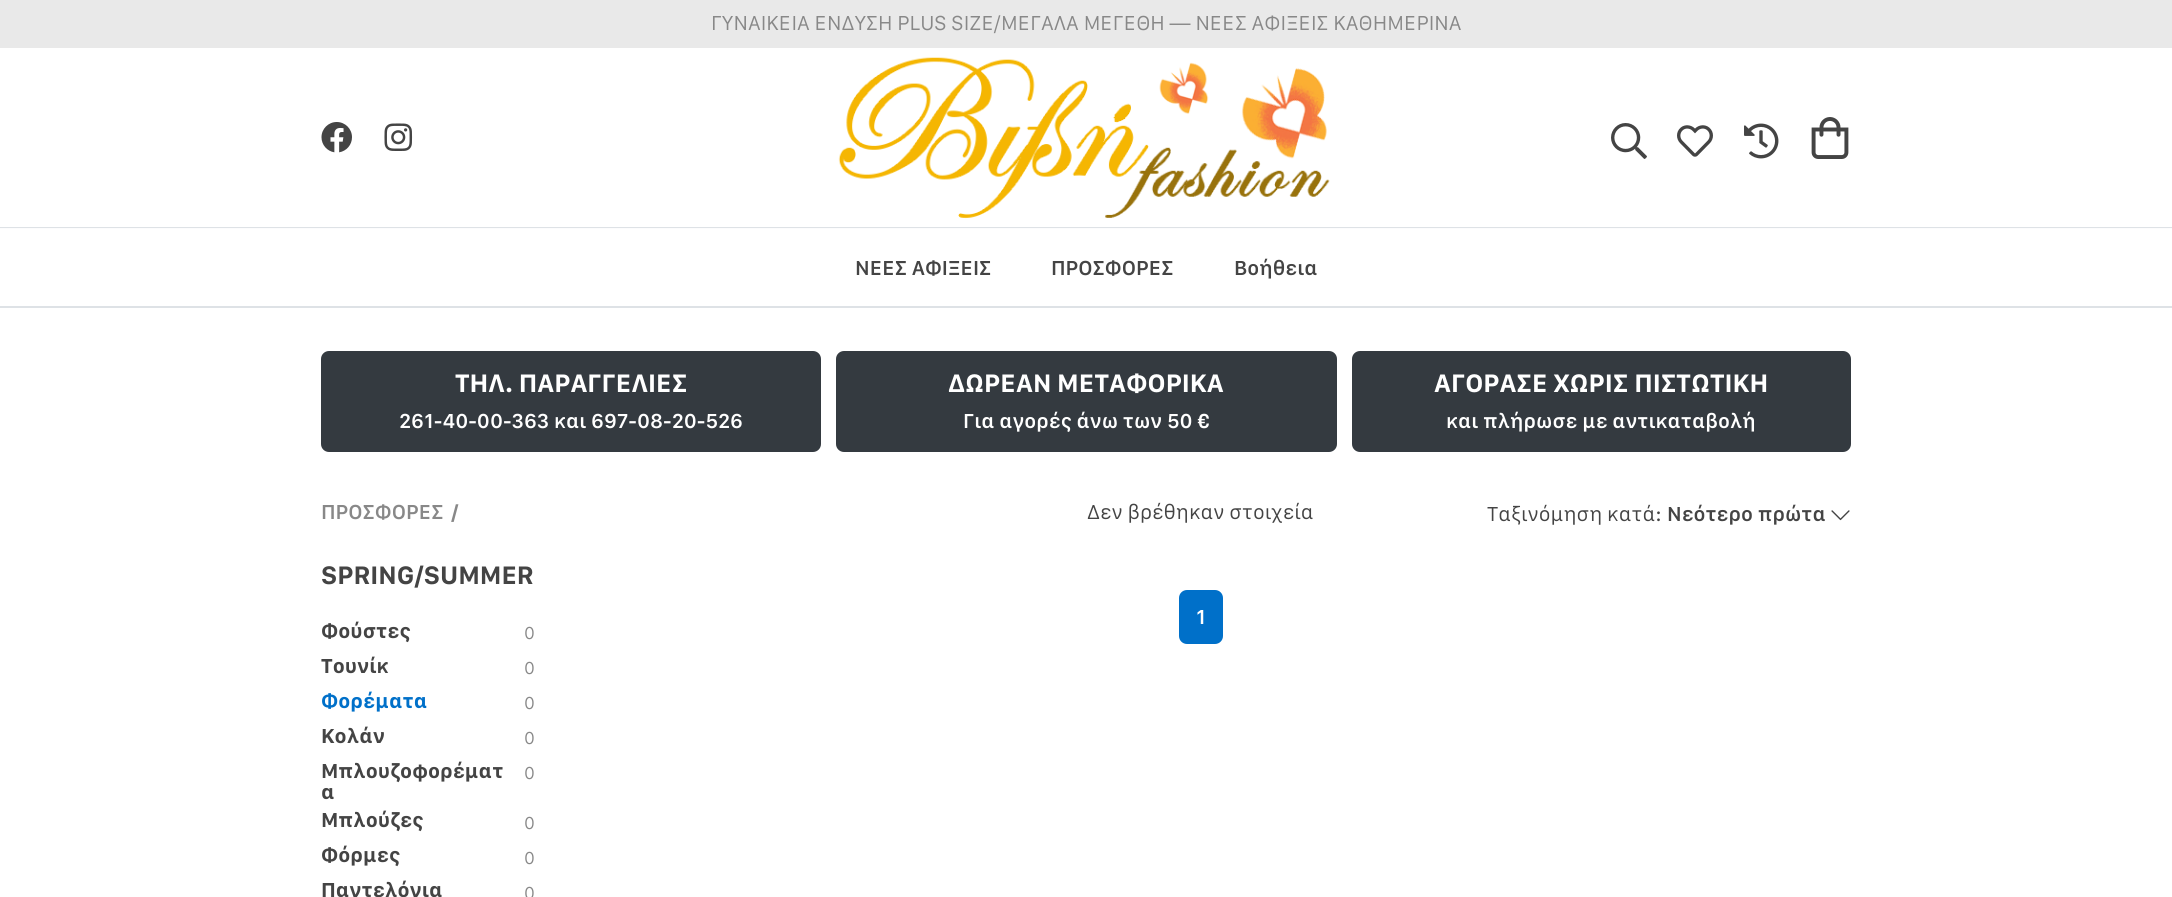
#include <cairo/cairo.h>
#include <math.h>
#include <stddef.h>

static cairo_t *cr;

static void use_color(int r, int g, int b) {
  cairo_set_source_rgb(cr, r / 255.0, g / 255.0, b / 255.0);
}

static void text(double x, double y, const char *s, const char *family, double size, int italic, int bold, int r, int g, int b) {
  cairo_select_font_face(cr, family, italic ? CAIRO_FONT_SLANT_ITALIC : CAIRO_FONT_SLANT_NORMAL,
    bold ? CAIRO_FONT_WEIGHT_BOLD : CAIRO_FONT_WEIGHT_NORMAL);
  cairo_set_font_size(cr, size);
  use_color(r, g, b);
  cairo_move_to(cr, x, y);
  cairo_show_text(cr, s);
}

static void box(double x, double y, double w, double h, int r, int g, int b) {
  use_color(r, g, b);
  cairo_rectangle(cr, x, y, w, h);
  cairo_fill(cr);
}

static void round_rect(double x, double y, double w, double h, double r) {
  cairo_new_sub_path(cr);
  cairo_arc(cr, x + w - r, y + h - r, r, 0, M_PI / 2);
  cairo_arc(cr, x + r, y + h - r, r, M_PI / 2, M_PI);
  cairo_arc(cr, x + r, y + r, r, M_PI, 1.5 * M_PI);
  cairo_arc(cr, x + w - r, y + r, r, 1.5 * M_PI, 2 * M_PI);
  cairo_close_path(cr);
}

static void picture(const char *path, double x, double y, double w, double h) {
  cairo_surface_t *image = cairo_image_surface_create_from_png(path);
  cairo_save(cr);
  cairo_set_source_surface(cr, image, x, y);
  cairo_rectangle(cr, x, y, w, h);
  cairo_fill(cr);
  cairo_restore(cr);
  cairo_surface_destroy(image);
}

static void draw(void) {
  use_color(255, 255, 255);
  cairo_paint(cr);
  box(0, 0, 2172, 48, 233, 233, 233);
  box(0, 227, 2172, 1, 222, 226, 230);
  box(0, 228, 2172, 1, 252, 252, 253);
  picture("img_01.png", 321, 122, 31, 31);
  picture("img_02.png", 384, 123, 29, 28);
  picture("img_03.png", 838, 57, 492, 162);
  picture("img_04.png", 1611, 123, 36, 36);
  picture("img_05.png", 1677, 125, 36, 32);
  picture("img_06.png", 1744, 123, 35, 36);
  picture("img_07.png", 1811, 117, 38, 42);
  box(0, 306, 2172, 2, 222, 226, 230);
  use_color(52, 58, 64);
  round_rect(321, 351, 500, 101, 8);
  cairo_fill(cr);
  round_rect(836, 351, 501, 101, 8);
  cairo_fill(cr);
  round_rect(1352, 351, 499, 101, 8);
  cairo_fill(cr);
  picture("img_08.png", 1831, 510, 19, 11);
  use_color(0, 112, 201);
  round_rect(1180, 591, 42, 52, 7);
  cairo_fill_preserve(cr);
  cairo_stroke(cr);
  text(711, 30, "ΓΥΝΑΙΚΕΙΑ ΕΝΔΥΣΗ PLUS SIZE/ΜΕΓΑΛΑ ΜΕΓΕΘΗ — ΝΕΕΣ ΑΦΙΞΕΙΣ ΚΑΘΗΜΕΡΙΝΑ", "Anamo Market", 21, 0, 0, 136, 136, 136);
  text(855, 275, "ΝΕΕΣ ΑΦΙΞΕΙΣ", "Anamo Market SemiBold", 21, 0, 0, 68, 68, 68);
  text(1051, 275, "ΠΡΟΣΦΟΡΕΣ", "Anamo Market SemiBold", 21, 0, 0, 68, 68, 68);
  text(1234, 275, "Βοήθεια", "Anamo Market SemiBold", 21, 0, 0, 68, 68, 68);
  text(455, 392, "ΤΗΛ. ΠΑΡΑΓΓΕΛΙΕΣ", "Anamo Market", 26.25, 0, 1, 255, 255, 255);
  text(399, 428, "261-40-00-363 και 697-08-20-526", "Anamo Market SemiBold", 21, 0, 0, 255, 255, 255);
  text(948, 392, "ΔΩΡΕΑΝ ΜΕΤΑΦΟΡΙΚΑ", "Anamo Market", 26.25, 0, 1, 255, 255, 255);
  text(963, 428, "Για αγορές άνω των 50 €", "Anamo Market SemiBold", 21, 0, 0, 255, 255, 255);
  text(1434, 392, "ΑΓΟΡΑΣΕ ΧΩΡΙΣ ΠΙΣΤΩΤΙΚΗ", "Anamo Market", 26.25, 0, 1, 255, 255, 255);
  text(1446, 428, "και πλήρωσε με αντικαταβολή", "Anamo Market SemiBold", 21, 0, 0, 255, 255, 255);
  text(321, 519, "ΠΡΟΣΦΟΡΕΣ", "Anamo Market SemiBold", 21, 0, 0, 136, 136, 136);
  text(451, 519, "/", "Anamo Market", 21, 0, 1, 136, 136, 136);
  text(321, 584, "SPRING/SUMMER", "Anamo Market", 26.25, 0, 1, 68, 68, 68);
  text(321, 638, "Φούστες", "Anamo Market", 21, 0, 1, 68, 68, 68);
  text(524, 639, "0", "Anamo Market", 18, 0, 0, 136, 136, 136);
  text(321, 673, "Τουνίκ", "Anamo Market", 21, 0, 1, 68, 68, 68);
  text(524, 674, "0", "Anamo Market", 18, 0, 0, 136, 136, 136);
  text(321, 708, "Φορέματα", "Anamo Market", 21, 0, 1, 0, 112, 201);
  text(524, 709, "0", "Anamo Market", 18, 0, 0, 136, 136, 136);
  text(321, 743, "Κολάν", "Anamo Market", 21, 0, 1, 68, 68, 68);
  text(524, 744, "0", "Anamo Market", 18, 0, 0, 136, 136, 136);
  text(321, 778, "Μπλουζοφορέματ", "Anamo Market", 21, 0, 1, 68, 68, 68);
  text(321, 799, "α", "Anamo Market", 21, 0, 1, 68, 68, 68);
  text(524, 779, "0", "Anamo Market", 18, 0, 0, 136, 136, 136);
  text(321, 827, "Μπλούζες", "Anamo Market", 21, 0, 1, 68, 68, 68);
  text(524, 829, "0", "Anamo Market", 18, 0, 0, 136, 136, 136);
  text(321, 862, "Φόρμες", "Anamo Market", 21, 0, 1, 68, 68, 68);
  text(524, 864, "0", "Anamo Market", 18, 0, 0, 136, 136, 136);
  text(321, 897, "Παντελόνια", "Anamo Market", 21, 0, 1, 68, 68, 68);
  text(524, 899, "0", "Anamo Market", 18, 0, 0, 136, 136, 136);
  text(1087, 519, "Δεν βρέθηκαν στοιχεία", "Anamo Market", 21, 0, 0, 68, 68, 68);
  text(1487, 521, "Ταξινόμηση κατά:", "Anamo Market", 21, 0, 0, 68, 68, 68);
  text(1667, 521, "Νεότερο πρώτα", "Anamo Market SemiBold", 21, 0, 0, 68, 68, 68);
  text(1196, 624, "1", "Anamo Market SemiBold", 21, 0, 0, 255, 255, 255);
}

int main(void) {
  cairo_surface_t *surface = cairo_image_surface_create(CAIRO_FORMAT_RGB24, 2172, 897);
  cr = cairo_create(surface);
  cairo_font_options_t *options = cairo_font_options_create();
  cairo_font_options_set_hint_metrics(options, CAIRO_HINT_METRICS_OFF);
  cairo_font_options_set_hint_style(options, CAIRO_HINT_STYLE_NONE);
  cairo_set_font_options(cr, options);
  cairo_set_miter_limit(cr, 4);
  draw();
  cairo_surface_write_to_png(surface, "out.png");
  cairo_font_options_destroy(options);
  cairo_destroy(cr);
  cairo_surface_destroy(surface);
  return 0;
}
